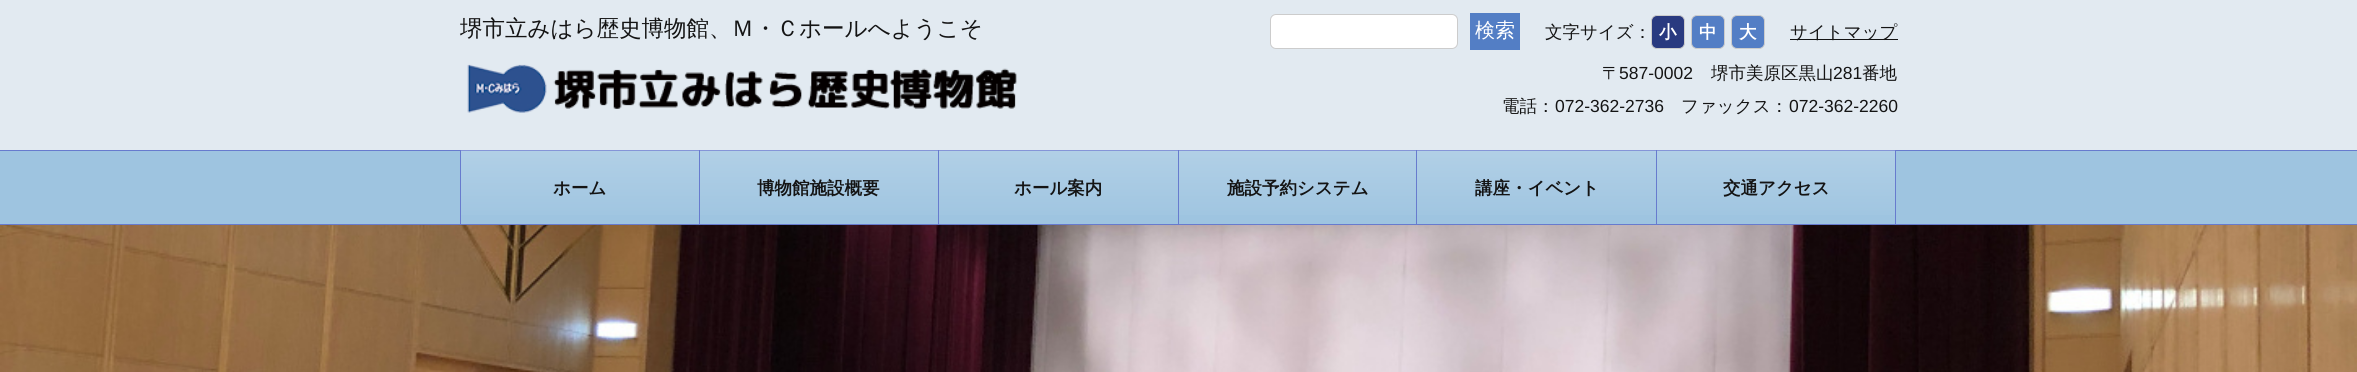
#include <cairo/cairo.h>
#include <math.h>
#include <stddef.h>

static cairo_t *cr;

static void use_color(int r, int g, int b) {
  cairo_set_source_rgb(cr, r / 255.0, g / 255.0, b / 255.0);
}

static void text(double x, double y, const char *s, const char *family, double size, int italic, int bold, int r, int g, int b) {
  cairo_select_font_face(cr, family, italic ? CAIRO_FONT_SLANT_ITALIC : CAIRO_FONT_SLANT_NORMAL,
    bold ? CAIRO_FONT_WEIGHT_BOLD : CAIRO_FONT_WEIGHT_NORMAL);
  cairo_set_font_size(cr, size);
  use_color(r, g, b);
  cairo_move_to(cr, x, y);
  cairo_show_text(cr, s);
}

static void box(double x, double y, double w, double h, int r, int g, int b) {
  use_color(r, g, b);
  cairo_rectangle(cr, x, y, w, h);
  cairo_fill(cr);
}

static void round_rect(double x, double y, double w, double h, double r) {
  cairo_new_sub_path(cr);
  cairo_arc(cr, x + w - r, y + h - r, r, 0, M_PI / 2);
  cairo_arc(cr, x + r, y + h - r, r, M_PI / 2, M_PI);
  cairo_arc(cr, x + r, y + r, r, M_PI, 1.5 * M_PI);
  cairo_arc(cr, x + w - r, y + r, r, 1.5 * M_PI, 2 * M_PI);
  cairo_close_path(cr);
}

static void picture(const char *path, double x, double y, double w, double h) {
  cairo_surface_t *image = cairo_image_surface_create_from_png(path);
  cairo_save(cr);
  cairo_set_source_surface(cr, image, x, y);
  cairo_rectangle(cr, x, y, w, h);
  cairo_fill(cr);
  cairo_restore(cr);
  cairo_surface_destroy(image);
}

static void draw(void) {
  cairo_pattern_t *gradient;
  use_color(255, 255, 255);
  cairo_paint(cr);
  box(0, 0, 2357, 150, 226, 234, 241);
  use_color(255, 255, 255);
  round_rect(1270.5, 14.5, 187, 34, 5.5);
  cairo_fill_preserve(cr);
  use_color(204, 204, 204);
  cairo_set_line_width(cr, 1);
  cairo_stroke(cr);
  box(1470, 13, 50, 37, 83, 126, 197);
  use_color(41, 58, 128);
  round_rect(1651.5, 15.5, 33, 33, 5.5);
  cairo_fill_preserve(cr);
  use_color(204, 204, 204);
  cairo_stroke(cr);
  use_color(83, 126, 197);
  round_rect(1691.5, 15.5, 33, 33, 5.5);
  cairo_fill_preserve(cr);
  use_color(204, 204, 204);
  cairo_stroke(cr);
  use_color(83, 126, 197);
  round_rect(1731.5, 15.5, 33, 33, 5.5);
  cairo_fill_preserve(cr);
  use_color(204, 204, 204);
  cairo_stroke(cr);
  box(1790, 39, 108, 1, 20, 20, 20);
  picture("img_01.png", 467, 64, 550, 49);
  box(0, 151, 2357, 73, 158, 196, 224);
  box(0, 150, 2357, 1, 103, 123, 206);
  box(0, 224, 2357, 1, 103, 123, 206);
  gradient = cairo_pattern_create_linear(580, 150, 580, 225);
  cairo_pattern_add_color_stop_rgba(gradient, 0, 1, 1, 1, 0.2);
  cairo_pattern_add_color_stop_rgba(gradient, 1, 1, 1, 1, 0);
  cairo_set_source(cr, gradient);
  cairo_pattern_destroy(gradient);
  cairo_rectangle(cr, 461, 150, 238, 65);
  cairo_fill(cr);
  box(699, 150, 1, 75, 103, 123, 206);
  box(460, 150, 1, 75, 103, 123, 206);
  gradient = cairo_pattern_create_linear(819, 150, 819, 225);
  cairo_pattern_add_color_stop_rgba(gradient, 0, 1, 1, 1, 0.2);
  cairo_pattern_add_color_stop_rgba(gradient, 1, 1, 1, 1, 0);
  cairo_set_source(cr, gradient);
  cairo_pattern_destroy(gradient);
  cairo_rectangle(cr, 700, 150, 238, 65);
  cairo_fill(cr);
  box(938, 150, 1, 75, 103, 123, 206);
  gradient = cairo_pattern_create_linear(1058, 150, 1058, 225);
  cairo_pattern_add_color_stop_rgba(gradient, 0, 1, 1, 1, 0.2);
  cairo_pattern_add_color_stop_rgba(gradient, 1, 1, 1, 1, 0);
  cairo_set_source(cr, gradient);
  cairo_pattern_destroy(gradient);
  cairo_rectangle(cr, 939, 150, 239, 65);
  cairo_fill(cr);
  box(1178, 150, 1, 75, 103, 123, 206);
  gradient = cairo_pattern_create_linear(1298, 150, 1298, 225);
  cairo_pattern_add_color_stop_rgba(gradient, 0, 1, 1, 1, 0.2);
  cairo_pattern_add_color_stop_rgba(gradient, 1, 1, 1, 1, 0);
  cairo_set_source(cr, gradient);
  cairo_pattern_destroy(gradient);
  cairo_rectangle(cr, 1179, 150, 239, 65);
  cairo_fill(cr);
  box(1416, 150, 1, 75, 103, 123, 206);
  gradient = cairo_pattern_create_linear(1537, 150, 1537, 225);
  cairo_pattern_add_color_stop_rgba(gradient, 0, 1, 1, 1, 0.2);
  cairo_pattern_add_color_stop_rgba(gradient, 1, 1, 1, 1, 0);
  cairo_set_source(cr, gradient);
  cairo_pattern_destroy(gradient);
  cairo_rectangle(cr, 1418, 150, 240, 65);
  cairo_fill(cr);
  box(1656, 150, 1, 75, 103, 123, 206);
  gradient = cairo_pattern_create_linear(1776, 150, 1776, 225);
  cairo_pattern_add_color_stop_rgba(gradient, 0, 1, 1, 1, 0.2);
  cairo_pattern_add_color_stop_rgba(gradient, 1, 1, 1, 1, 0);
  cairo_set_source(cr, gradient);
  cairo_pattern_destroy(gradient);
  cairo_rectangle(cr, 1658, 150, 237, 65);
  cairo_fill(cr);
  box(1895, 150, 1, 75, 103, 123, 206);
  picture("img_02.png", 0, 225, 2357, 147);
  text(460, 36, "堺市立みはら歴史博物館、Ｍ・Ｃホールへようこそ", "WenQuanYi Zen Hei Medium", 22.5, 0, 0, 20, 20, 20);
  text(1475, 37, "検索", "WenQuanYi Zen Hei Medium", 20, 0, 0, 255, 255, 255);
  text(1545, 38, "文字サイズ：", "WenQuanYi Zen Hei Medium", 17.5, 0, 0, 20, 20, 20);
  text(1659, 38, "小", "WenQuanYi Zen Hei", 17.5, 0, 1, 255, 255, 255);
  text(1699, 38, "中", "WenQuanYi Zen Hei", 17.5, 0, 1, 255, 255, 255);
  text(1739, 38, "大", "WenQuanYi Zen Hei", 17.5, 0, 1, 255, 255, 255);
  text(1790, 38, "サイトマップ", "WenQuanYi Zen Hei Medium", 17.5, 0, 0, 20, 20, 20);
  text(1602, 79, "〒", "WenQuanYi Zen Hei Medium", 17.5, 0, 0, 20, 20, 20);
  text(1619, 79, "587-0002", "Liberation Sans", 17.5, 0, 0, 20, 20, 20);
  text(1711, 79, "堺市美原区黒山", "WenQuanYi Zen Hei Medium", 17.5, 0, 0, 20, 20, 20);
  text(1833, 79, "281", "Liberation Sans", 17.5, 0, 0, 20, 20, 20);
  text(1862, 79, "番地", "WenQuanYi Zen Hei Medium", 17.5, 0, 0, 20, 20, 20);
  text(1502, 112, "電話：", "WenQuanYi Zen Hei Medium", 17.5, 0, 0, 20, 20, 20);
  text(1555, 112, "072-362-2736", "Liberation Sans", 17.5, 0, 0, 20, 20, 20);
  text(1681, 112, "ファックス：", "WenQuanYi Zen Hei Medium", 17.5, 0, 0, 20, 20, 20);
  text(1789, 112, "072-362-2260", "Liberation Sans", 17.5, 0, 0, 20, 20, 20);
  text(553, 194, "ホーム", "WenQuanYi Zen Hei", 17.5, 0, 1, 20, 20, 20);
  text(757, 194, "博物館施設概要", "WenQuanYi Zen Hei", 17.5, 0, 1, 20, 20, 20);
  text(1014, 194, "ホール案内", "WenQuanYi Zen Hei", 17.5, 0, 1, 20, 20, 20);
  text(1227, 194, "施設予約システム", "WenQuanYi Zen Hei", 17.5, 0, 1, 20, 20, 20);
  text(1475, 194, "講座・イベント", "WenQuanYi Zen Hei", 17.5, 0, 1, 20, 20, 20);
  text(1723, 194, "交通アクセス", "WenQuanYi Zen Hei", 17.5, 0, 1, 20, 20, 20);
}

int main(void) {
  cairo_surface_t *surface = cairo_image_surface_create(CAIRO_FORMAT_RGB24, 2357, 372);
  cr = cairo_create(surface);
  cairo_font_options_t *options = cairo_font_options_create();
  cairo_font_options_set_hint_metrics(options, CAIRO_HINT_METRICS_OFF);
  cairo_font_options_set_hint_style(options, CAIRO_HINT_STYLE_NONE);
  cairo_set_font_options(cr, options);
  cairo_set_miter_limit(cr, 4);
  draw();
  cairo_surface_write_to_png(surface, "out.png");
  cairo_font_options_destroy(options);
  cairo_destroy(cr);
  cairo_surface_destroy(surface);
  return 0;
}
